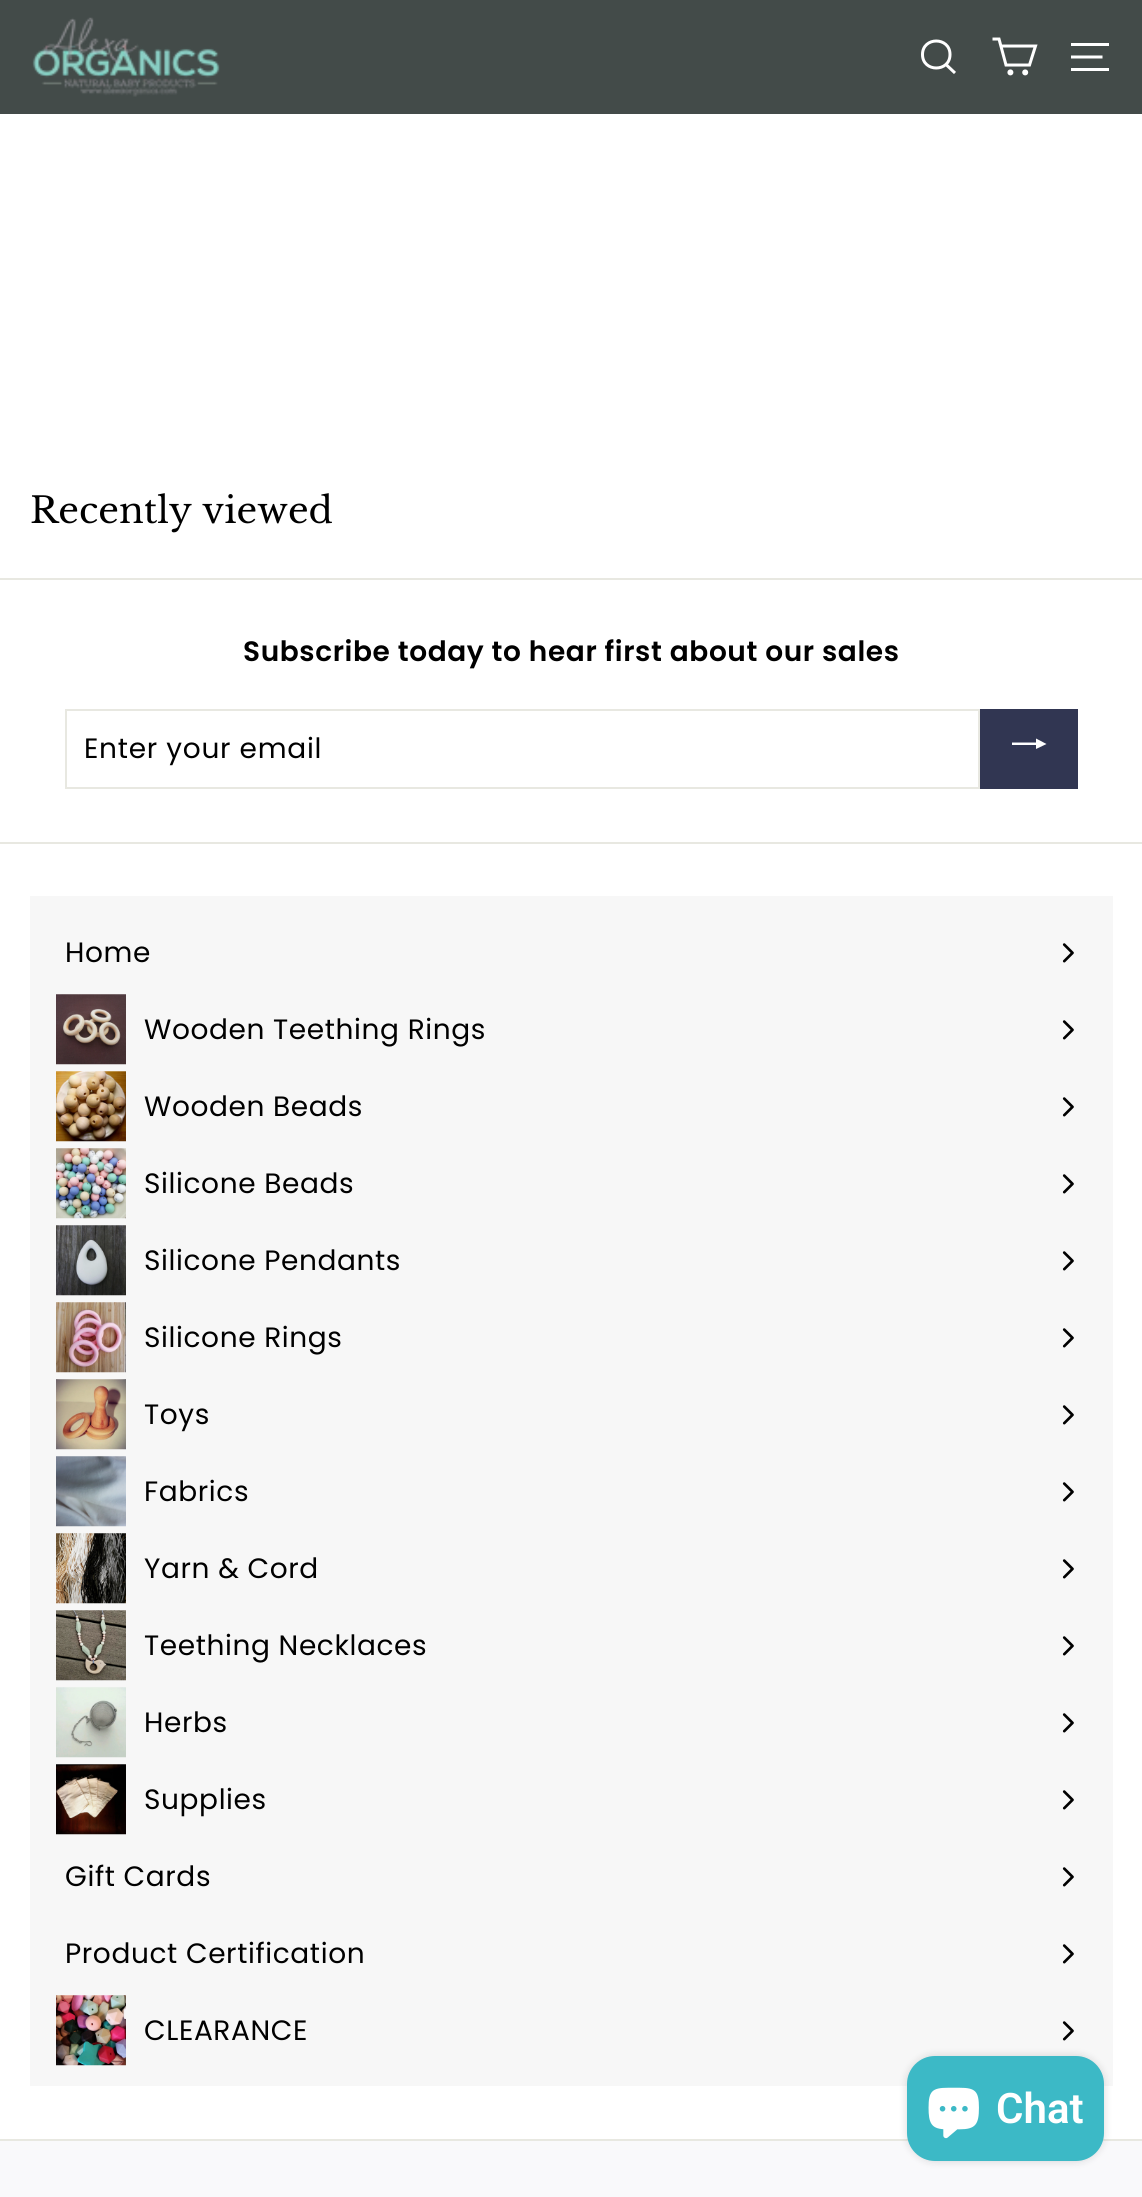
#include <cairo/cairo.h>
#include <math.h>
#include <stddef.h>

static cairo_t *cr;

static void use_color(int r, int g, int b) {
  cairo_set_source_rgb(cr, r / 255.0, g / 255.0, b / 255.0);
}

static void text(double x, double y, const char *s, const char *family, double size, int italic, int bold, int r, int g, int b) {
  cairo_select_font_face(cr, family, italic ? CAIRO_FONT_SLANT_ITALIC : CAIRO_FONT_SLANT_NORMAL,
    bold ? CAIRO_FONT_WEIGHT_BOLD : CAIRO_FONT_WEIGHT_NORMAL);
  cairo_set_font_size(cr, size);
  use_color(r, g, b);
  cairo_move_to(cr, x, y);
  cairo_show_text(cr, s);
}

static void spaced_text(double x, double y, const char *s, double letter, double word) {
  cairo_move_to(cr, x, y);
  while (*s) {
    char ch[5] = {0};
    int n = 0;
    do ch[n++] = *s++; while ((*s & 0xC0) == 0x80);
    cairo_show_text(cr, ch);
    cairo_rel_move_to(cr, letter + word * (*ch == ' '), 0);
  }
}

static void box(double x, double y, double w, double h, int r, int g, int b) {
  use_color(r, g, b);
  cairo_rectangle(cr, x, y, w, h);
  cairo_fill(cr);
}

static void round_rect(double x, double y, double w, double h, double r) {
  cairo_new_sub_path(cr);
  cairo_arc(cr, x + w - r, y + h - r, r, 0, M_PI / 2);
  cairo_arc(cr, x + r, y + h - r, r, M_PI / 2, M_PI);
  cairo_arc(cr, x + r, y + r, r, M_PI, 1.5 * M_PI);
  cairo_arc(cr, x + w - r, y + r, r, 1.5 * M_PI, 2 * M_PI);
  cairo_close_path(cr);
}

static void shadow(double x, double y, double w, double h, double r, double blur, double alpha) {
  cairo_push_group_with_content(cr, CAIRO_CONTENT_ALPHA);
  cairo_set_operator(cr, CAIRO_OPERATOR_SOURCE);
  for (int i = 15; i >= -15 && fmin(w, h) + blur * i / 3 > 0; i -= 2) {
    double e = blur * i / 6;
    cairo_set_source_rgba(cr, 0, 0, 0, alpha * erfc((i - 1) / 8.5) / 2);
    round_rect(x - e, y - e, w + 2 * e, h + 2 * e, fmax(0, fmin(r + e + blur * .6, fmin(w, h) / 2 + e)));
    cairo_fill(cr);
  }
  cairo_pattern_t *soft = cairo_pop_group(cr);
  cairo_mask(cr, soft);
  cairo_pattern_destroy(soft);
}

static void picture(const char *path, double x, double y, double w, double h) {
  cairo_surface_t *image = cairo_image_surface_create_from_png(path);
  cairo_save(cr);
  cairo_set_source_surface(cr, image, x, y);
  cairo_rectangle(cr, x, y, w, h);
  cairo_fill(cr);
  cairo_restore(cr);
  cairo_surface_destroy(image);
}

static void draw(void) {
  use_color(255, 255, 255);
  cairo_paint(cr);
  box(30, 896, 1083, 1190, 247, 247, 247);
  box(0, 0, 1142, 114, 67, 75, 73);
  picture("img_01.png", 32, 17, 188, 80);
  cairo_new_path(cr);
  cairo_move_to(cr, 950, 54.5);
  cairo_curve_to(cr, 950, 72.5, 922.5, 72.5, 922.5, 54.5);
  cairo_curve_to(cr, 922.5, 36.5, 950, 36.5, 950, 54.5);
  cairo_close_path(cr);
  cairo_move_to(cr, 955, 73);
  cairo_line_to(cr, 946, 64.5);
  use_color(255, 255, 255);
  cairo_set_line_width(cr, 3);
  cairo_stroke(cr);
  cairo_new_path(cr);
  cairo_move_to(cr, 1001, 46);
  cairo_line_to(cr, 1035.5, 46);
  cairo_line_to(cr, 1029.5, 65);
  cairo_line_to(cr, 1006, 65);
  cairo_line_to(cr, 999, 39);
  cairo_line_to(cr, 992.5, 39);
  cairo_stroke(cr);
  cairo_arc(cr, 1010.4, 72.4, 1.5, 0, 2 * M_PI);
  cairo_stroke(cr);
  cairo_arc(cr, 1025.2, 72.4, 1.5, 0, 2 * M_PI);
  cairo_stroke(cr);
  box(1071, 43, 38, 3, 255, 255, 255);
  cairo_new_path(cr);
  cairo_move_to(cr, 1071, 57);
  cairo_line_to(cr, 1102.5, 57);
  cairo_stroke(cr);
  box(1071, 68, 38, 3, 255, 255, 255);
  box(0, 578, 1142, 2, 232, 232, 225);
  cairo_rectangle(cr, 66, 710, 913, 78);
  cairo_set_line_width(cr, 2);
  cairo_stroke(cr);
  box(980, 709, 98, 80, 49, 54, 82);
  cairo_save(cr);
  cairo_rectangle(cr, 1012, 726, 35, 35);
  cairo_clip(cr);
  use_color(255, 255, 255);
  cairo_new_path(cr);
  cairo_move_to(cr, 1011.5, 745);
  cairo_line_to(cr, 1011.5, 742.5);
  cairo_line_to(cr, 1036, 742.5);
  cairo_line_to(cr, 1036, 738.5);
  cairo_line_to(cr, 1046.5, 744);
  cairo_line_to(cr, 1036, 749);
  cairo_line_to(cr, 1036, 745);
  cairo_close_path(cr);
  cairo_fill(cr);
  cairo_restore(cr);
  box(0, 842, 1142, 2, 232, 232, 225);
  picture("img_02.png", 1062, 943, 12, 20);
  picture("img_03.png", 56, 994, 70, 71);
  picture("img_02.png", 1062, 1020, 12, 20);
  picture("img_04.png", 56, 1071, 70, 71);
  picture("img_02.png", 1062, 1097, 12, 20);
  picture("img_05.png", 56, 1148, 70, 71);
  picture("img_02.png", 1062, 1174, 12, 20);
  picture("img_06.png", 56, 1225, 70, 71);
  picture("img_02.png", 1062, 1251, 12, 20);
  picture("img_07.png", 56, 1302, 70, 71);
  picture("img_02.png", 1062, 1328, 12, 20);
  picture("img_08.png", 56, 1379, 70, 71);
  picture("img_02.png", 1062, 1405, 12, 20);
  picture("img_09.png", 56, 1456, 70, 71);
  picture("img_02.png", 1062, 1482, 12, 20);
  picture("img_10.png", 56, 1533, 70, 71);
  picture("img_02.png", 1062, 1559, 12, 20);
  picture("img_11.png", 56, 1610, 70, 71);
  picture("img_02.png", 1062, 1636, 12, 20);
  picture("img_12.png", 56, 1687, 70, 71);
  picture("img_02.png", 1062, 1713, 12, 20);
  picture("img_13.png", 56, 1764, 70, 71);
  picture("img_02.png", 1062, 1790, 12, 20);
  picture("img_02.png", 1062, 1867, 12, 20);
  picture("img_02.png", 1062, 1944, 12, 20);
  picture("img_14.png", 56, 1995, 70, 71);
  picture("img_02.png", 1062, 2021, 12, 20);
  box(0, 2141, 1142, 56, 249, 249, 251);
  box(0, 2139, 1142, 2, 232, 232, 225);
  use_color(0, 0, 0);
  shadow(907, 2056, 197, 105, 28, 4.5, 0.15);
  use_color(60, 185, 198);
  round_rect(907, 2056, 197, 105, 28);
  cairo_fill(cr);
  picture("img_15.png", 928, 2087, 51, 52);
  text(30, 523, "Recently viewed", "Libre Baskerville", 36, 0, 0, 0, 0, 0);
  cairo_select_font_face(cr, "Poppins SemiBold", CAIRO_FONT_SLANT_NORMAL, CAIRO_FONT_WEIGHT_NORMAL);
  cairo_set_font_size(cr, 28);
  spaced_text(243, 661, "Subscribe today to hear first about our sales", 0.6, 0);
  cairo_select_font_face(cr, "Poppins", CAIRO_FONT_SLANT_NORMAL, CAIRO_FONT_WEIGHT_NORMAL);
  spaced_text(84, 758, "Enter your email", 0.75, 0);
  spaced_text(65, 962, "Home", 0.6, 0);
  spaced_text(144, 1039, "Wooden Teething Rings", 0.6, 0);
  spaced_text(144, 1116, "Wooden Beads", 0.6, 0);
  spaced_text(144, 1193, "Silicone Beads", 0.6, 0);
  spaced_text(144, 1270, "Silicone Pendants", 0.6, 0);
  spaced_text(144, 1347, "Silicone Rings", 0.6, 0);
  spaced_text(144, 1424, "Toys", 0.6, 0);
  spaced_text(144, 1501, "Fabrics", 0.6, 0);
  spaced_text(144, 1578, "Yarn & Cord", 0.6, 0);
  spaced_text(144, 1655, "Teething Necklaces", 0.6, 0);
  spaced_text(144, 1732, "Herbs", 0.6, 0);
  spaced_text(144, 1809, "Supplies", 0.6, 0);
  spaced_text(65, 1886, "Gift Cards", 0.6, 0);
  spaced_text(65, 1963, "Product Certification", 0.6, 0);
  spaced_text(144, 2040, "CLEARANCE", 0.6, 0);
  text(996, 2123, "Chat", "Roboto SemiBold", 42, 0, 0, 255, 255, 255);
}

int main(void) {
  cairo_surface_t *surface = cairo_image_surface_create(CAIRO_FORMAT_RGB24, 1142, 2197);
  cr = cairo_create(surface);
  cairo_font_options_t *options = cairo_font_options_create();
  cairo_font_options_set_hint_metrics(options, CAIRO_HINT_METRICS_OFF);
  cairo_font_options_set_hint_style(options, CAIRO_HINT_STYLE_NONE);
  cairo_set_font_options(cr, options);
  cairo_set_miter_limit(cr, 4);
  draw();
  cairo_surface_write_to_png(surface, "out.png");
  cairo_font_options_destroy(options);
  cairo_destroy(cr);
  cairo_surface_destroy(surface);
  return 0;
}
